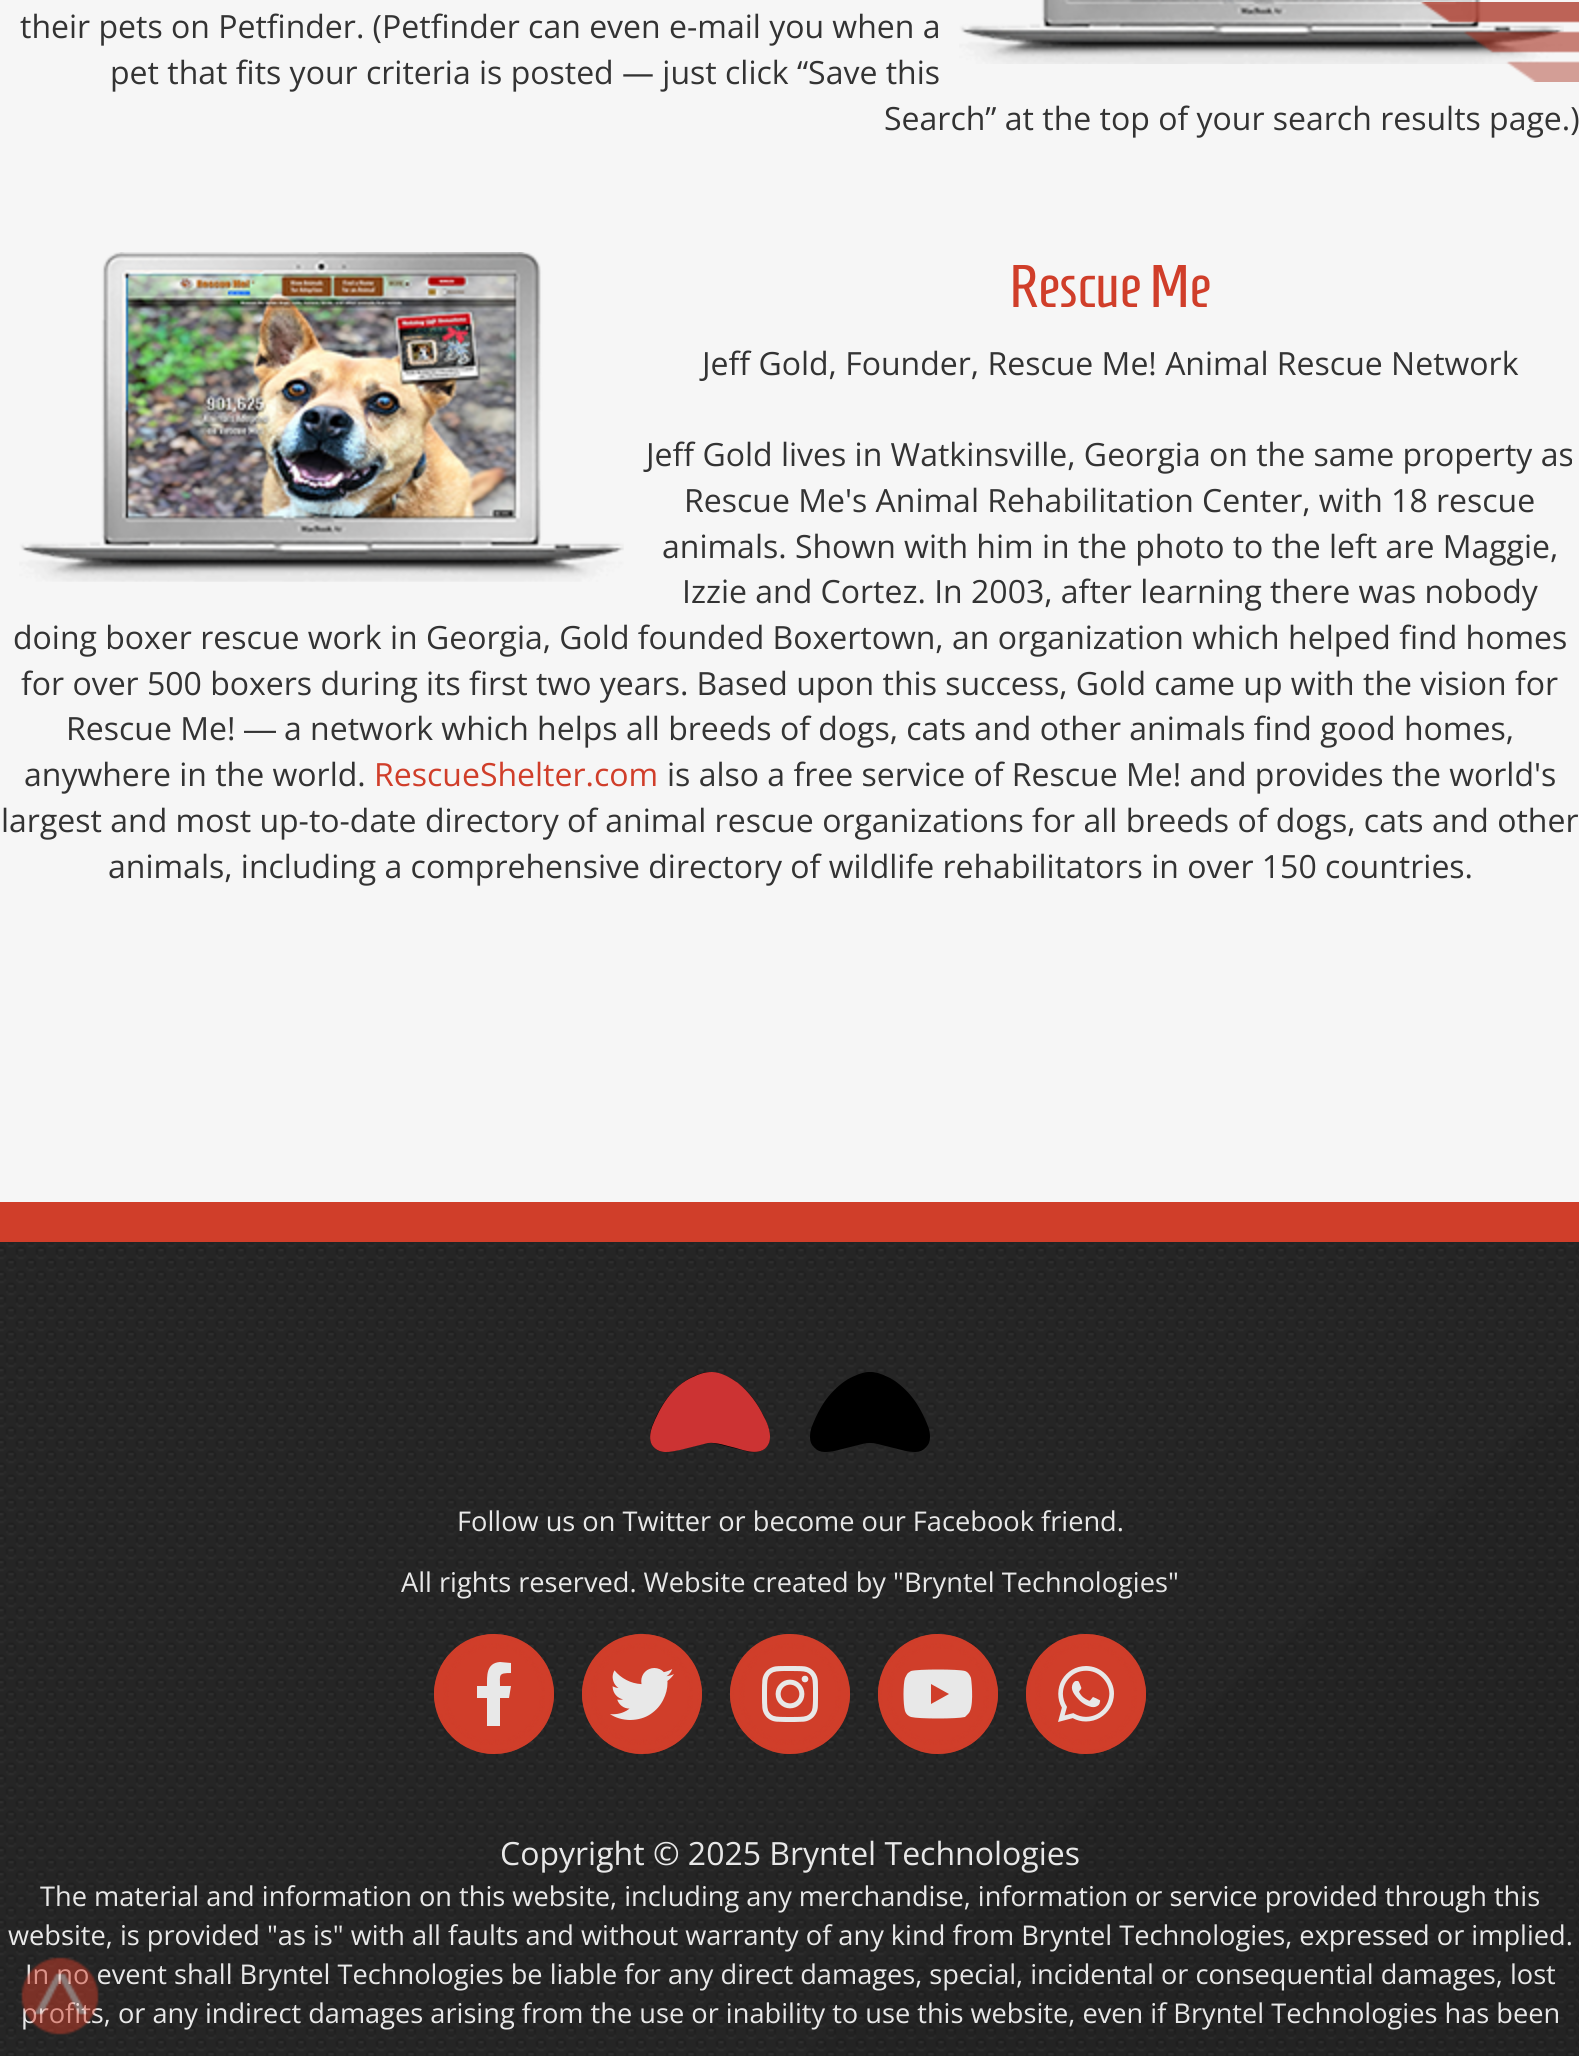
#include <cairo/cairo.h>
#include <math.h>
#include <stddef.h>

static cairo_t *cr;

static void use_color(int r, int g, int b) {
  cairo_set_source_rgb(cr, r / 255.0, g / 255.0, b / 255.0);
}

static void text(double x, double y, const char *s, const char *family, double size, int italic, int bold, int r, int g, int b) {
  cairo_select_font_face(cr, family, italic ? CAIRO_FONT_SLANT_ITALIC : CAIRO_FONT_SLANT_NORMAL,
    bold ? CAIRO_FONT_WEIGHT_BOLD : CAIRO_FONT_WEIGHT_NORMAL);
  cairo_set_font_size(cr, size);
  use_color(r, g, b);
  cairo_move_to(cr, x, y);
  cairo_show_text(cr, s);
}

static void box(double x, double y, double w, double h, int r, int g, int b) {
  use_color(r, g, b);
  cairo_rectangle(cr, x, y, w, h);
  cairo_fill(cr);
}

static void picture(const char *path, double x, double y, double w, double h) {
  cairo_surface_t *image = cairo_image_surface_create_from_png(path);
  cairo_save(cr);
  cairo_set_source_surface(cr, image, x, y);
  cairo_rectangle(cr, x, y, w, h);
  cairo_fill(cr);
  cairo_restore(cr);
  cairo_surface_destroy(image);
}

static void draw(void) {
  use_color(255, 255, 255);
  cairo_paint(cr);
  picture("img_01.png", 0, 0, 1579, 2056);
  picture("img_03.png", 959, 0, 605, 64);
  picture("img_02.png", 1420, 2, 159, 80);
  picture("img_04.png", 19, 252, 605, 330);
  cairo_set_source_rgba(cr, 0, 0, 0, 0.85);
  cairo_rectangle(cr, 0, 1242, 1579, 814);
  cairo_fill(cr);
  picture("img_05.png", 0, 1242, 1579, 814);
  box(0, 1202, 1579, 40, 208, 62, 42);
  picture("img_06.png", 650, 1372, 280, 80);
  use_color(204, 51, 51);
  cairo_new_path(cr);
  cairo_move_to(cr, 652, 1427);
  cairo_curve_to(cr, 660, 1407, 672, 1386, 693, 1377);
  cairo_curve_to(cr, 699, 1374, 705, 1372, 712, 1372);
  cairo_curve_to(cr, 721, 1372, 731, 1378, 738, 1383);
  cairo_curve_to(cr, 749, 1392, 758, 1404, 764, 1417);
  cairo_curve_to(cr, 768, 1424, 772, 1435, 769, 1443);
  cairo_curve_to(cr, 763, 1457, 746, 1451, 736, 1448);
  cairo_curve_to(cr, 727, 1446, 717, 1442, 708, 1443);
  cairo_line_to(cr, 680, 1450);
  cairo_curve_to(cr, 670, 1452, 659, 1455, 652, 1445);
  cairo_curve_to(cr, 649, 1440, 650, 1433, 652, 1427);
  cairo_close_path(cr);
  cairo_fill(cr);
  use_color(208, 62, 42);
  cairo_arc(cr, 494, 1694, 60, 0, 2 * M_PI);
  cairo_fill(cr);
  picture("img_07.png", 434, 1634, 120, 120);
  use_color(232, 232, 232);
  cairo_new_path(cr);
  cairo_move_to(cr, 509, 1698);
  cairo_line_to(cr, 511, 1686);
  cairo_line_to(cr, 500, 1686);
  cairo_curve_to(cr, 500, 1675, 498, 1673, 511, 1673);
  cairo_line_to(cr, 511, 1663);
  cairo_line_to(cr, 500, 1662);
  cairo_curve_to(cr, 486, 1663, 487, 1676, 487, 1686);
  cairo_line_to(cr, 477, 1686);
  cairo_line_to(cr, 477, 1698);
  cairo_line_to(cr, 487, 1698);
  cairo_line_to(cr, 487, 1726);
  cairo_line_to(cr, 500, 1726);
  cairo_line_to(cr, 500, 1698);
  cairo_close_path(cr);
  cairo_fill(cr);
  use_color(208, 62, 42);
  cairo_arc(cr, 642, 1694, 60, 0, 2 * M_PI);
  cairo_fill(cr);
  picture("img_08.png", 582, 1634, 120, 120);
  picture("img_09.png", 610, 1668, 64, 52);
  cairo_arc(cr, 790, 1694, 60, 0, 2 * M_PI);
  cairo_fill(cr);
  picture("img_10.png", 730, 1634, 120, 120);
  picture("img_11.png", 762, 1666, 56, 56);
  cairo_arc(cr, 938, 1694, 60, 0, 2 * M_PI);
  cairo_fill(cr);
  picture("img_12.png", 878, 1634, 120, 120);
  use_color(232, 232, 232);
  cairo_new_path(cr);
  cairo_move_to(cr, 971, 1678);
  cairo_curve_to(cr, 970, 1675, 968, 1672, 965, 1671);
  cairo_curve_to(cr, 958, 1669, 918, 1669, 911, 1671);
  cairo_line_to(cr, 908, 1673);
  cairo_curve_to(cr, 907, 1674, 906, 1676, 905, 1678);
  cairo_curve_to(cr, 903, 1684, 903, 1704, 905, 1711);
  cairo_curve_to(cr, 906, 1714, 908, 1716, 911, 1717);
  cairo_curve_to(cr, 919, 1719, 957, 1719, 965, 1717);
  cairo_line_to(cr, 968, 1714);
  cairo_curve_to(cr, 974, 1709, 972, 1685, 971, 1678);
  cairo_close_path(cr);
  cairo_move_to(cr, 931, 1704);
  cairo_line_to(cr, 931, 1684);
  cairo_line_to(cr, 949, 1694);
  cairo_close_path(cr);
  cairo_fill(cr);
  use_color(208, 62, 42);
  cairo_arc(cr, 1086, 1694, 60, 0, 2 * M_PI);
  cairo_fill(cr);
  picture("img_13.png", 1026, 1634, 120, 120);
  picture("img_14.png", 1058, 1666, 56, 56);
  text(20, 38, "their pets on Petfinder. (Petfinder can even e-mail you when a", "Open Sans", 32, 0, 0, 51, 51, 51);
  text(110, 84, "pet that fits your criteria is posted — just click “Save this", "Open Sans", 32, 0, 0, 51, 51, 51);
  text(884, 130, "Search” at the top of your search results page.)", "Open Sans", 32, 0, 0, 51, 51, 51);
  text(1009, 307, "Rescue Me", "Homenaje", 60, 0, 0, 208, 62, 42);
  text(702, 375, "Jeff Gold, Founder, Rescue Me! Animal Rescue Network", "Open Sans", 32, 0, 0, 51, 51, 51);
  text(646, 466, "Jeff Gold lives in Watkinsville, Georgia on the same property as", "Open Sans", 32, 0, 0, 51, 51, 51);
  text(684, 512, "Rescue Me's Animal Rehabilitation Center, with 18 rescue", "Open Sans", 32, 0, 0, 51, 51, 51);
  text(662, 558, "animals. Shown with him in the photo to the left are Maggie,", "Open Sans", 32, 0, 0, 51, 51, 51);
  text(682, 603, "Izzie and Cortez. In 2003, after learning there was nobody", "Open Sans", 32, 0, 0, 51, 51, 51);
  text(13, 649, "doing boxer rescue work in Georgia, Gold founded Boxertown, an organization which helped find homes", "Open Sans", 32, 0, 0, 51, 51, 51);
  text(21, 695, "for over 500 boxers during its first two years. Based upon this success, Gold came up with the vision for", "Open Sans", 32, 0, 0, 51, 51, 51);
  text(66, 740, "Rescue Me!", "Open Sans", 32, 0, 0, 51, 51, 51);
  text(244, 740, "―", "Liberation Sans", 32, 0, 0, 51, 51, 51);
  text(284, 740, "a network which helps all breeds of dogs, cats and other animals find good homes,", "Open Sans", 32, 0, 0, 51, 51, 51);
  text(24, 786, "anywhere in the world.", "Open Sans", 32, 0, 0, 51, 51, 51);
  text(374, 786, "RescueShelter.com", "Open Sans", 32, 0, 0, 208, 62, 42);
  text(667, 786, "is also a free service of Rescue Me! and provides the world's", "Open Sans", 32, 0, 0, 51, 51, 51);
  text(1, 832, "largest and most up-to-date directory of animal rescue organizations for all breeds of dogs, cats and other", "Open Sans", 32, 0, 0, 51, 51, 51);
  text(108, 878, "animals, including a comprehensive directory of wildlife rehabilitators in over 150 countries.", "Open Sans", 32, 0, 0, 51, 51, 51);
  text(457, 1531, "Follow us on Twitter or become our Facebook friend.", "Open Sans", 27.2, 0, 0, 232, 232, 232);
  text(401, 1592, "All rights reserved. Website created by \"Bryntel Technologies\"", "Open Sans", 27.2, 0, 0, 232, 232, 232);
  text(500, 1865, "Copyright © 2025 Bryntel Technologies", "Open Sans", 32, 0, 0, 232, 232, 232);
  text(40, 1906, "The material and information on this website, including any merchandise, information or service provided through this", "Open Sans", 27.2, 0, 0, 232, 232, 232);
  text(8, 1945, "website, is provided \"as is\" with all faults and without warranty of any kind from Bryntel Technologies, expressed or implied.", "Open Sans", 27.2, 0, 0, 232, 232, 232);
  text(25, 1984, "In no event shall Bryntel Technologies be liable for any direct damages, special, incidental or consequential damages, lost", "Open Sans", 27.2, 0, 0, 232, 232, 232);
  text(21, 2023, "profits, or any indirect damages arising from the use or inability to use this website, even if Bryntel Technologies has been", "Open Sans", 27.2, 0, 0, 232, 232, 232);
  picture("img_15.png", 21, 1957, 78, 78);
}

int main(void) {
  cairo_surface_t *surface = cairo_image_surface_create(CAIRO_FORMAT_RGB24, 1579, 2056);
  cr = cairo_create(surface);
  cairo_font_options_t *options = cairo_font_options_create();
  cairo_font_options_set_hint_metrics(options, CAIRO_HINT_METRICS_OFF);
  cairo_font_options_set_hint_style(options, CAIRO_HINT_STYLE_NONE);
  cairo_set_font_options(cr, options);
  cairo_set_miter_limit(cr, 4);
  draw();
  cairo_surface_write_to_png(surface, "out.png");
  cairo_font_options_destroy(options);
  cairo_destroy(cr);
  cairo_surface_destroy(surface);
  return 0;
}
